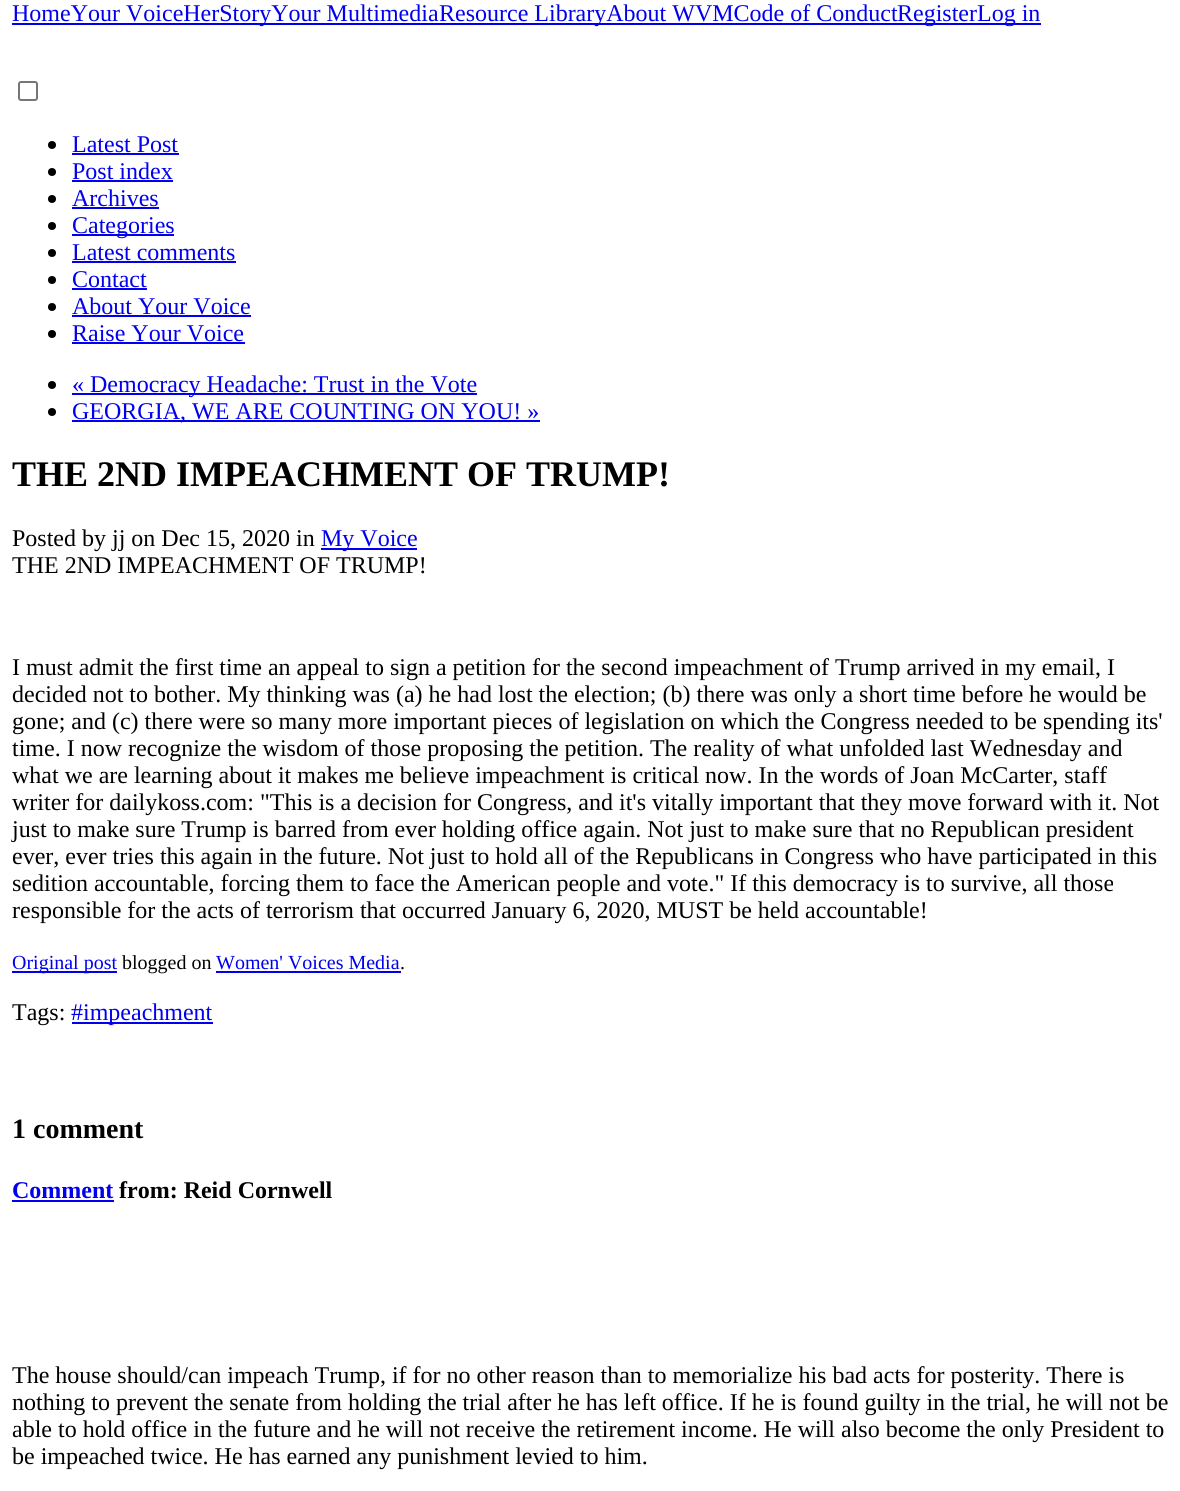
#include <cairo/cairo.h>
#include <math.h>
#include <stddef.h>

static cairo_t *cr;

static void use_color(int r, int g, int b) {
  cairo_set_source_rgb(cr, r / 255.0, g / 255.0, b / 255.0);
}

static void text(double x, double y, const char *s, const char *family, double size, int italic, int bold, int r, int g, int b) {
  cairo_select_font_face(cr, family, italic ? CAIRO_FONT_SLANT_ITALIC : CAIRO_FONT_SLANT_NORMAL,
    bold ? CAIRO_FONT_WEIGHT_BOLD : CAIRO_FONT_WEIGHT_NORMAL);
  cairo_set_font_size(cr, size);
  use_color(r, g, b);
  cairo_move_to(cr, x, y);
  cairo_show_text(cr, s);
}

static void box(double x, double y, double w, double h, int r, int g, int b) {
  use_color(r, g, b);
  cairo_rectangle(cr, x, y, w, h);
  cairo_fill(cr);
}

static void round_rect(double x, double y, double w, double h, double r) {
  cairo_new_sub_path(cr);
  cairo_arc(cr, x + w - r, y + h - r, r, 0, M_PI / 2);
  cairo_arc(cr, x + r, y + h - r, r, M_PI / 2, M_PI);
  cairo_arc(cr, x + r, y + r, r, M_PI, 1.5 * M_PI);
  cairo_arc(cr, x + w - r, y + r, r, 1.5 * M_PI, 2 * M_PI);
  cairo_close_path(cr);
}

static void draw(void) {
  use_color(255, 255, 255);
  cairo_paint(cr);
  box(12, 23, 426, 2, 0, 0, 238);
  box(438, 23, 459, 2, 0, 0, 238);
  box(897, 23, 144, 2, 0, 0, 238);
  round_rect(19, 82, 18, 18, 2);
  use_color(118, 118, 118);
  cairo_stroke(cr);
  use_color(0, 0, 0);
  cairo_arc(cr, 52, 145, 4, 0, 2 * M_PI);
  cairo_fill(cr);
  box(72, 153, 107, 2, 0, 0, 238);
  use_color(0, 0, 0);
  cairo_arc(cr, 52, 172, 4, 0, 2 * M_PI);
  cairo_fill(cr);
  box(72, 180, 101, 2, 0, 0, 238);
  use_color(0, 0, 0);
  cairo_arc(cr, 52, 199, 4, 0, 2 * M_PI);
  cairo_fill(cr);
  box(72, 207, 87, 2, 0, 0, 238);
  use_color(0, 0, 0);
  cairo_arc(cr, 52, 226, 4, 0, 2 * M_PI);
  cairo_fill(cr);
  box(72, 234, 102, 2, 0, 0, 238);
  use_color(0, 0, 0);
  cairo_arc(cr, 52, 253, 4, 0, 2 * M_PI);
  cairo_fill(cr);
  box(72, 261, 164, 2, 0, 0, 238);
  use_color(0, 0, 0);
  cairo_arc(cr, 52, 280, 4, 0, 2 * M_PI);
  cairo_fill(cr);
  box(72, 288, 75, 2, 0, 0, 238);
  use_color(0, 0, 0);
  cairo_arc(cr, 52, 307, 4, 0, 2 * M_PI);
  cairo_fill(cr);
  box(72, 315, 179, 2, 0, 0, 238);
  use_color(0, 0, 0);
  cairo_arc(cr, 52, 334, 4, 0, 2 * M_PI);
  cairo_fill(cr);
  box(72, 342, 173, 2, 0, 0, 238);
  use_color(0, 0, 0);
  cairo_arc(cr, 52, 385, 4, 0, 2 * M_PI);
  cairo_fill(cr);
  box(72, 393, 405, 2, 0, 0, 238);
  use_color(0, 0, 0);
  cairo_arc(cr, 52, 412, 4, 0, 2 * M_PI);
  cairo_fill(cr);
  box(72, 420, 468, 2, 0, 0, 238);
  box(321, 548, 96, 2, 0, 0, 238);
  box(12, 971, 105, 2, 0, 0, 238);
  box(216, 971, 185, 2, 0, 0, 238);
  box(72, 1022, 141, 2, 0, 0, 238);
  box(12, 1200, 102, 2, 0, 0, 238);
  text(12, 21, "HomeYour VoiceHerStoryYour Multimedia", "Liberation Serif", 24, 0, 0, 0, 0, 238);
  text(439, 21, "Resource LibraryAbout WVMCode of Conduct", "Liberation Serif", 24, 0, 0, 0, 0, 238);
  text(897, 21, "RegisterLog in", "Liberation Serif", 24, 0, 0, 0, 0, 238);
  text(72, 152, "Latest Post", "Liberation Serif", 24, 0, 0, 0, 0, 238);
  text(72, 179, "Post index", "Liberation Serif", 24, 0, 0, 0, 0, 238);
  text(72, 206, "Archives", "Liberation Serif", 24, 0, 0, 0, 0, 238);
  text(72, 233, "Categories", "Liberation Serif", 24, 0, 0, 0, 0, 238);
  text(72, 260, "Latest comments", "Liberation Serif", 24, 0, 0, 0, 0, 238);
  text(72, 287, "Contact", "Liberation Serif", 24, 0, 0, 0, 0, 238);
  text(72, 314, "About Your Voice", "Liberation Serif", 24, 0, 0, 0, 0, 238);
  text(72, 341, "Raise Your Voice", "Liberation Serif", 24, 0, 0, 0, 0, 238);
  text(72, 392, "« Democracy Headache: Trust in the Vote", "Liberation Serif", 24, 0, 0, 0, 0, 238);
  text(72, 419, "GEORGIA, WE ARE COUNTING ON YOU! »", "Liberation Serif", 24, 0, 0, 0, 0, 238);
  text(12, 486, "THE 2ND IMPEACHMENT OF TRUMP!", "Liberation Serif", 36, 0, 1, 0, 0, 0);
  text(12, 546, "Posted by jj on Dec 15, 2020 in", "Liberation Serif", 24, 0, 0, 0, 0, 0);
  text(321, 546, "My Voice", "Liberation Serif", 24, 0, 0, 0, 0, 238);
  text(12, 573, "THE 2ND IMPEACHMENT OF TRUMP!", "Liberation Serif", 24, 0, 0, 0, 0, 0);
  text(12, 675, "I must admit the first time an appeal to sign a petition for the second impeachment of Trump arrived in my email, I", "Liberation Serif", 24, 0, 0, 0, 0, 0);
  text(12, 702, "decided not to bother. My thinking was (a) he had lost the election; (b) there was only a short time before he would be", "Liberation Serif", 24, 0, 0, 0, 0, 0);
  text(12, 729, "gone; and (c) there were so many more important pieces of legislation on which the Congress needed to be spending its'", "Liberation Serif", 24, 0, 0, 0, 0, 0);
  text(12, 756, "time. I now recognize the wisdom of those proposing the petition. The reality of what unfolded last Wednesday and", "Liberation Serif", 24, 0, 0, 0, 0, 0);
  text(12, 783, "what we are learning about it makes me believe impeachment is critical now. In the words of Joan McCarter, staff", "Liberation Serif", 24, 0, 0, 0, 0, 0);
  text(12, 810, "writer for dailykoss.com: \"This is a decision for Congress, and it's vitally important that they move forward with it. Not", "Liberation Serif", 24, 0, 0, 0, 0, 0);
  text(12, 837, "just to make sure Trump is barred from ever holding office again. Not just to make sure that no Republican president", "Liberation Serif", 24, 0, 0, 0, 0, 0);
  text(12, 864, "ever, ever tries this again in the future. Not just to hold all of the Republicans in Congress who have participated in this", "Liberation Serif", 24, 0, 0, 0, 0, 0);
  text(12, 891, "sedition accountable, forcing them to face the American people and vote.\" If this democracy is to survive, all those", "Liberation Serif", 24, 0, 0, 0, 0, 0);
  text(12, 918, "responsible for the acts of terrorism that occurred January 6, 2020, MUST be held accountable!", "Liberation Serif", 24, 0, 0, 0, 0, 0);
  text(12, 969, "Original post", "Liberation Serif", 20, 0, 0, 0, 0, 238);
  text(122, 969, "blogged on", "Liberation Serif", 20, 0, 0, 0, 0, 0);
  text(216, 969, "Women' Voices Media", "Liberation Serif", 20, 0, 0, 0, 0, 238);
  text(400, 969, ".", "Liberation Serif", 20, 0, 0, 0, 0, 0);
  text(12, 1020, "Tags:", "Liberation Serif", 24, 0, 0, 0, 0, 0);
  text(71, 1020, "#impeachment", "Liberation Serif", 24, 0, 0, 0, 0, 238);
  text(12, 1138, "1 comment", "Liberation Serif", 28, 0, 1, 0, 0, 0);
  text(12, 1198, "Comment", "Liberation Serif", 24, 0, 1, 0, 0, 238);
  text(119, 1198, "from: Reid Cornwell", "Liberation Serif", 24, 0, 1, 0, 0, 0);
  text(12, 1383, "The house should/can impeach Trump, if for no other reason than to memorialize his bad acts for posterity. There is", "Liberation Serif", 24, 0, 0, 0, 0, 0);
  text(12, 1410, "nothing to prevent the senate from holding the trial after he has left office. If he is found guilty in the trial, he will not be", "Liberation Serif", 24, 0, 0, 0, 0, 0);
  text(12, 1437, "able to hold office in the future and he will not receive the retirement income. He will also become the only President to", "Liberation Serif", 24, 0, 0, 0, 0, 0);
  text(12, 1464, "be impeached twice. He has earned any punishment levied to him.", "Liberation Serif", 24, 0, 0, 0, 0, 0);
}

int main(void) {
  cairo_surface_t *surface = cairo_image_surface_create(CAIRO_FORMAT_RGB24, 1180, 1491);
  cr = cairo_create(surface);
  cairo_font_options_t *options = cairo_font_options_create();
  cairo_font_options_set_hint_metrics(options, CAIRO_HINT_METRICS_OFF);
  cairo_font_options_set_hint_style(options, CAIRO_HINT_STYLE_NONE);
  cairo_set_font_options(cr, options);
  cairo_set_miter_limit(cr, 4);
  draw();
  cairo_surface_write_to_png(surface, "out.png");
  cairo_font_options_destroy(options);
  cairo_destroy(cr);
  cairo_surface_destroy(surface);
  return 0;
}
